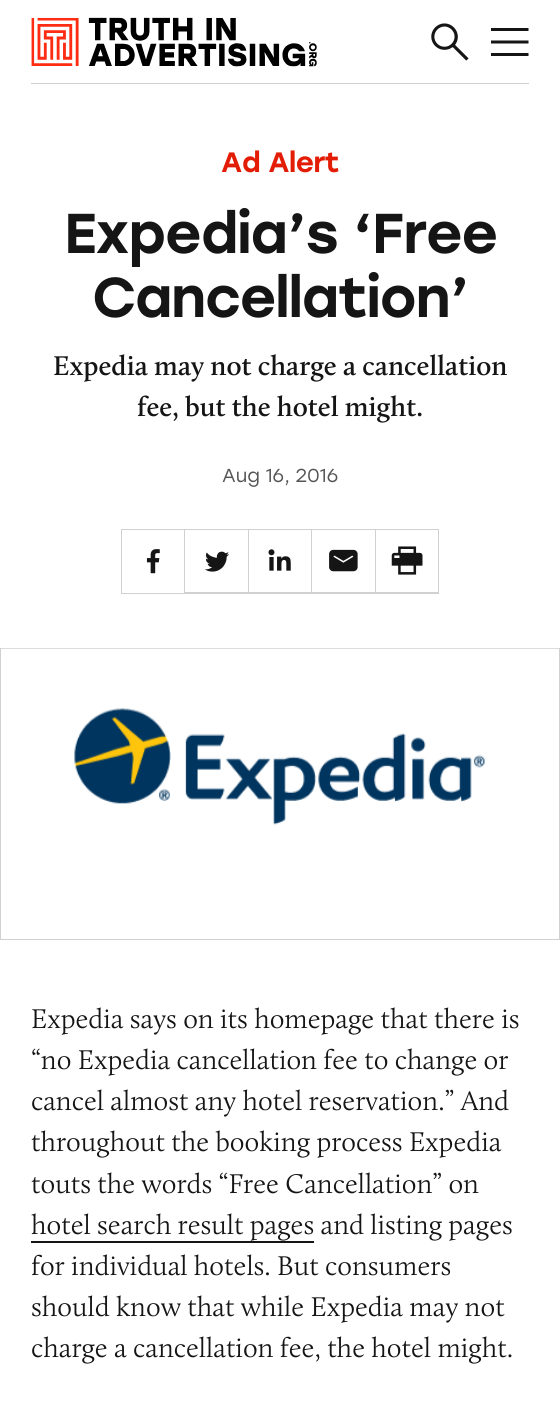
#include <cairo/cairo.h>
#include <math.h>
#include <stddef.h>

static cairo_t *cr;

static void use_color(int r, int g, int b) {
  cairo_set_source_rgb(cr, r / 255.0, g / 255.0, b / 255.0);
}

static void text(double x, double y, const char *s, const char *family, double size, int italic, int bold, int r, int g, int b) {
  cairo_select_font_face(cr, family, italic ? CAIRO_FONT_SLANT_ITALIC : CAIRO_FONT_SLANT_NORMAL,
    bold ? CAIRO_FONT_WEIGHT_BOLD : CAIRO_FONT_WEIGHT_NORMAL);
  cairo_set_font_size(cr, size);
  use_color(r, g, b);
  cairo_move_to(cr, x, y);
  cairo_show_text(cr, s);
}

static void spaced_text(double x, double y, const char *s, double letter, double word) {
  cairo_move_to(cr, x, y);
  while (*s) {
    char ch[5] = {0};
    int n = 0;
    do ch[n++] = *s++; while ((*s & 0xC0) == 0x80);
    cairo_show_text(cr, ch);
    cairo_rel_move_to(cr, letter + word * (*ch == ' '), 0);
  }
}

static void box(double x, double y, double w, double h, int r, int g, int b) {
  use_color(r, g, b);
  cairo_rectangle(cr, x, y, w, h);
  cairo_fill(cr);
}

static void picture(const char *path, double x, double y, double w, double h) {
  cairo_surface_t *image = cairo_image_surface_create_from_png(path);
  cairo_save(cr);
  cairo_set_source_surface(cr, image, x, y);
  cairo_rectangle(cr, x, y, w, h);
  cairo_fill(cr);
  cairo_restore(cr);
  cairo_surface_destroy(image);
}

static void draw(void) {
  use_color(255, 255, 255);
  cairo_paint(cr);
  box(31, 83, 498, 1, 208, 208, 208);
  picture("img_01.png", 31, 17, 286, 50);
  picture("img_02.png", 431, 23, 38, 38);
  use_color(21, 21, 21);
  cairo_new_path(cr);
  cairo_move_to(cr, 528.5, 28);
  cairo_line_to(cr, 528.5, 31);
  cairo_line_to(cr, 491, 31);
  cairo_line_to(cr, 491, 28);
  cairo_close_path(cr);
  cairo_move_to(cr, 491, 43.5);
  cairo_line_to(cr, 528.5, 43.5);
  cairo_line_to(cr, 528.5, 40.5);
  cairo_line_to(cr, 491, 40.5);
  cairo_close_path(cr);
  cairo_move_to(cr, 491, 56);
  cairo_line_to(cr, 528.5, 56);
  cairo_line_to(cr, 528.5, 53);
  cairo_line_to(cr, 491, 53);
  cairo_close_path(cr);
  cairo_fill(cr);
  cairo_rectangle(cr, 121.5, 529.5, 63, 64);
  use_color(208, 208, 208);
  cairo_set_line_width(cr, 1);
  cairo_stroke(cr);
  picture("img_03.png", 146, 549, 14, 25);
  cairo_new_path(cr);
  cairo_move_to(cr, 185, 529);
  cairo_line_to(cr, 249, 529);
  cairo_line_to(cr, 248, 530);
  cairo_line_to(cr, 185, 530);
  cairo_close_path(cr);
  cairo_fill(cr);
  cairo_set_source_rgba(cr, 0.082, 0.082, 0.082, 0.2);
  cairo_new_path(cr);
  cairo_move_to(cr, 249, 529);
  cairo_line_to(cr, 249, 594);
  cairo_line_to(cr, 248, 592);
  cairo_line_to(cr, 248, 530);
  cairo_close_path(cr);
  cairo_fill(cr);
  cairo_new_path(cr);
  cairo_move_to(cr, 249, 594);
  cairo_line_to(cr, 185, 594);
  cairo_line_to(cr, 185, 592);
  cairo_line_to(cr, 248, 592);
  cairo_close_path(cr);
  cairo_fill(cr);
  picture("img_04.png", 205, 551, 25, 21);
  use_color(208, 208, 208);
  cairo_new_path(cr);
  cairo_move_to(cr, 249, 529);
  cairo_line_to(cr, 312, 529);
  cairo_line_to(cr, 311, 530);
  cairo_line_to(cr, 249, 530);
  cairo_close_path(cr);
  cairo_fill(cr);
  cairo_set_source_rgba(cr, 0.082, 0.082, 0.082, 0.2);
  cairo_new_path(cr);
  cairo_move_to(cr, 312, 529);
  cairo_line_to(cr, 312, 594);
  cairo_line_to(cr, 311, 592);
  cairo_line_to(cr, 311, 530);
  cairo_close_path(cr);
  cairo_fill(cr);
  cairo_new_path(cr);
  cairo_move_to(cr, 312, 594);
  cairo_line_to(cr, 249, 594);
  cairo_line_to(cr, 249, 592);
  cairo_line_to(cr, 311, 592);
  cairo_close_path(cr);
  cairo_fill(cr);
  picture("img_05.png", 268, 549, 23, 22);
  use_color(208, 208, 208);
  cairo_new_path(cr);
  cairo_move_to(cr, 312, 529);
  cairo_line_to(cr, 376, 529);
  cairo_line_to(cr, 375, 530);
  cairo_line_to(cr, 312, 530);
  cairo_close_path(cr);
  cairo_fill(cr);
  cairo_set_source_rgba(cr, 0.082, 0.082, 0.082, 0.2);
  cairo_new_path(cr);
  cairo_move_to(cr, 376, 529);
  cairo_line_to(cr, 376, 594);
  cairo_line_to(cr, 375, 592);
  cairo_line_to(cr, 375, 530);
  cairo_close_path(cr);
  cairo_fill(cr);
  cairo_new_path(cr);
  cairo_move_to(cr, 376, 594);
  cairo_line_to(cr, 312, 594);
  cairo_line_to(cr, 312, 592);
  cairo_line_to(cr, 375, 592);
  cairo_close_path(cr);
  cairo_fill(cr);
  picture("img_06.png", 329, 549, 29, 23);
  use_color(208, 208, 208);
  cairo_new_path(cr);
  cairo_move_to(cr, 376, 529);
  cairo_line_to(cr, 439, 529);
  cairo_line_to(cr, 438, 530);
  cairo_line_to(cr, 376, 530);
  cairo_close_path(cr);
  cairo_fill(cr);
  cairo_set_source_rgba(cr, 0.082, 0.082, 0.082, 0.2);
  cairo_new_path(cr);
  cairo_move_to(cr, 439, 529);
  cairo_line_to(cr, 439, 594);
  cairo_line_to(cr, 438, 592);
  cairo_line_to(cr, 438, 530);
  cairo_close_path(cr);
  cairo_fill(cr);
  cairo_new_path(cr);
  cairo_move_to(cr, 439, 594);
  cairo_line_to(cr, 376, 594);
  cairo_line_to(cr, 376, 592);
  cairo_line_to(cr, 438, 592);
  cairo_close_path(cr);
  cairo_fill(cr);
  picture("img_07.png", 391, 546, 32, 29);
  cairo_rectangle(cr, 0.5, 648.5, 559, 291);
  use_color(208, 208, 208);
  cairo_stroke(cr);
  picture("img_08.png", 1, 648, 558, 177);
  use_color(21, 21, 21);
  cairo_new_path(cr);
  cairo_move_to(cr, 31, 1208);
  cairo_line_to(cr, 31, 1243);
  cairo_line_to(cr, 314, 1243);
  cairo_line_to(cr, 314, 1208);
  cairo_line_to(cr, 314, 1241);
  cairo_line_to(cr, 31, 1241);
  cairo_close_path(cr);
  cairo_fill(cr);
  cairo_select_font_face(cr, "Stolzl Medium", CAIRO_FONT_SLANT_NORMAL, CAIRO_FONT_WEIGHT_NORMAL);
  cairo_set_font_size(cr, 28);
  use_color(227, 29, 5);
  spaced_text(221, 172, "Ad Alert", -0.5, 0);
  cairo_set_font_size(cr, 56);
  use_color(21, 21, 21);
  spaced_text(64, 253, "Expedia’s ‘Free", -1.1, 0);
  spaced_text(92, 317, "Cancellation’", -1.1, 0);
  text(53, 375, "Expedia may not charge a cancellation", "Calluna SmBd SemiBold", 28, 0, 0, 21, 21, 21);
  text(137, 416, "fee, but the hotel might.", "Calluna SmBd SemiBold", 28, 0, 0, 21, 21, 21);
  text(222, 482, "Aug 16, 2016", "Stolzl", 18.75, 0, 0, 85, 85, 85);
  text(31, 1028, "Expedia says on its homepage that there is", "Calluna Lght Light", 28, 0, 0, 21, 21, 21);
  text(31, 1069, "“no Expedia cancellation fee to change or", "Calluna Lght Light", 28, 0, 0, 21, 21, 21);
  text(31, 1110, "cancel almost any hotel reservation.” And", "Calluna Lght Light", 28, 0, 0, 21, 21, 21);
  text(31, 1151, "throughout the booking process Expedia", "Calluna Lght Light", 28, 0, 0, 21, 21, 21);
  text(31, 1193, "touts the words “Free Cancellation” on", "Calluna Lght Light", 28, 0, 0, 21, 21, 21);
  text(31, 1234, "hotel search result pages and listing pages", "Calluna Lght Light", 28, 0, 0, 21, 21, 21);
  text(31, 1275, "for individual hotels. But consumers", "Calluna Lght Light", 28, 0, 0, 21, 21, 21);
  text(31, 1316, "should know that while Expedia may not", "Calluna Lght Light", 28, 0, 0, 21, 21, 21);
  text(31, 1357, "charge a cancellation fee, the hotel might.", "Calluna Lght Light", 28, 0, 0, 21, 21, 21);
}

int main(void) {
  cairo_surface_t *surface = cairo_image_surface_create(CAIRO_FORMAT_RGB24, 560, 1411);
  cr = cairo_create(surface);
  cairo_font_options_t *options = cairo_font_options_create();
  cairo_font_options_set_hint_metrics(options, CAIRO_HINT_METRICS_OFF);
  cairo_font_options_set_hint_style(options, CAIRO_HINT_STYLE_NONE);
  cairo_set_font_options(cr, options);
  cairo_set_miter_limit(cr, 4);
  draw();
  cairo_surface_write_to_png(surface, "out.png");
  cairo_font_options_destroy(options);
  cairo_destroy(cr);
  cairo_surface_destroy(surface);
  return 0;
}
